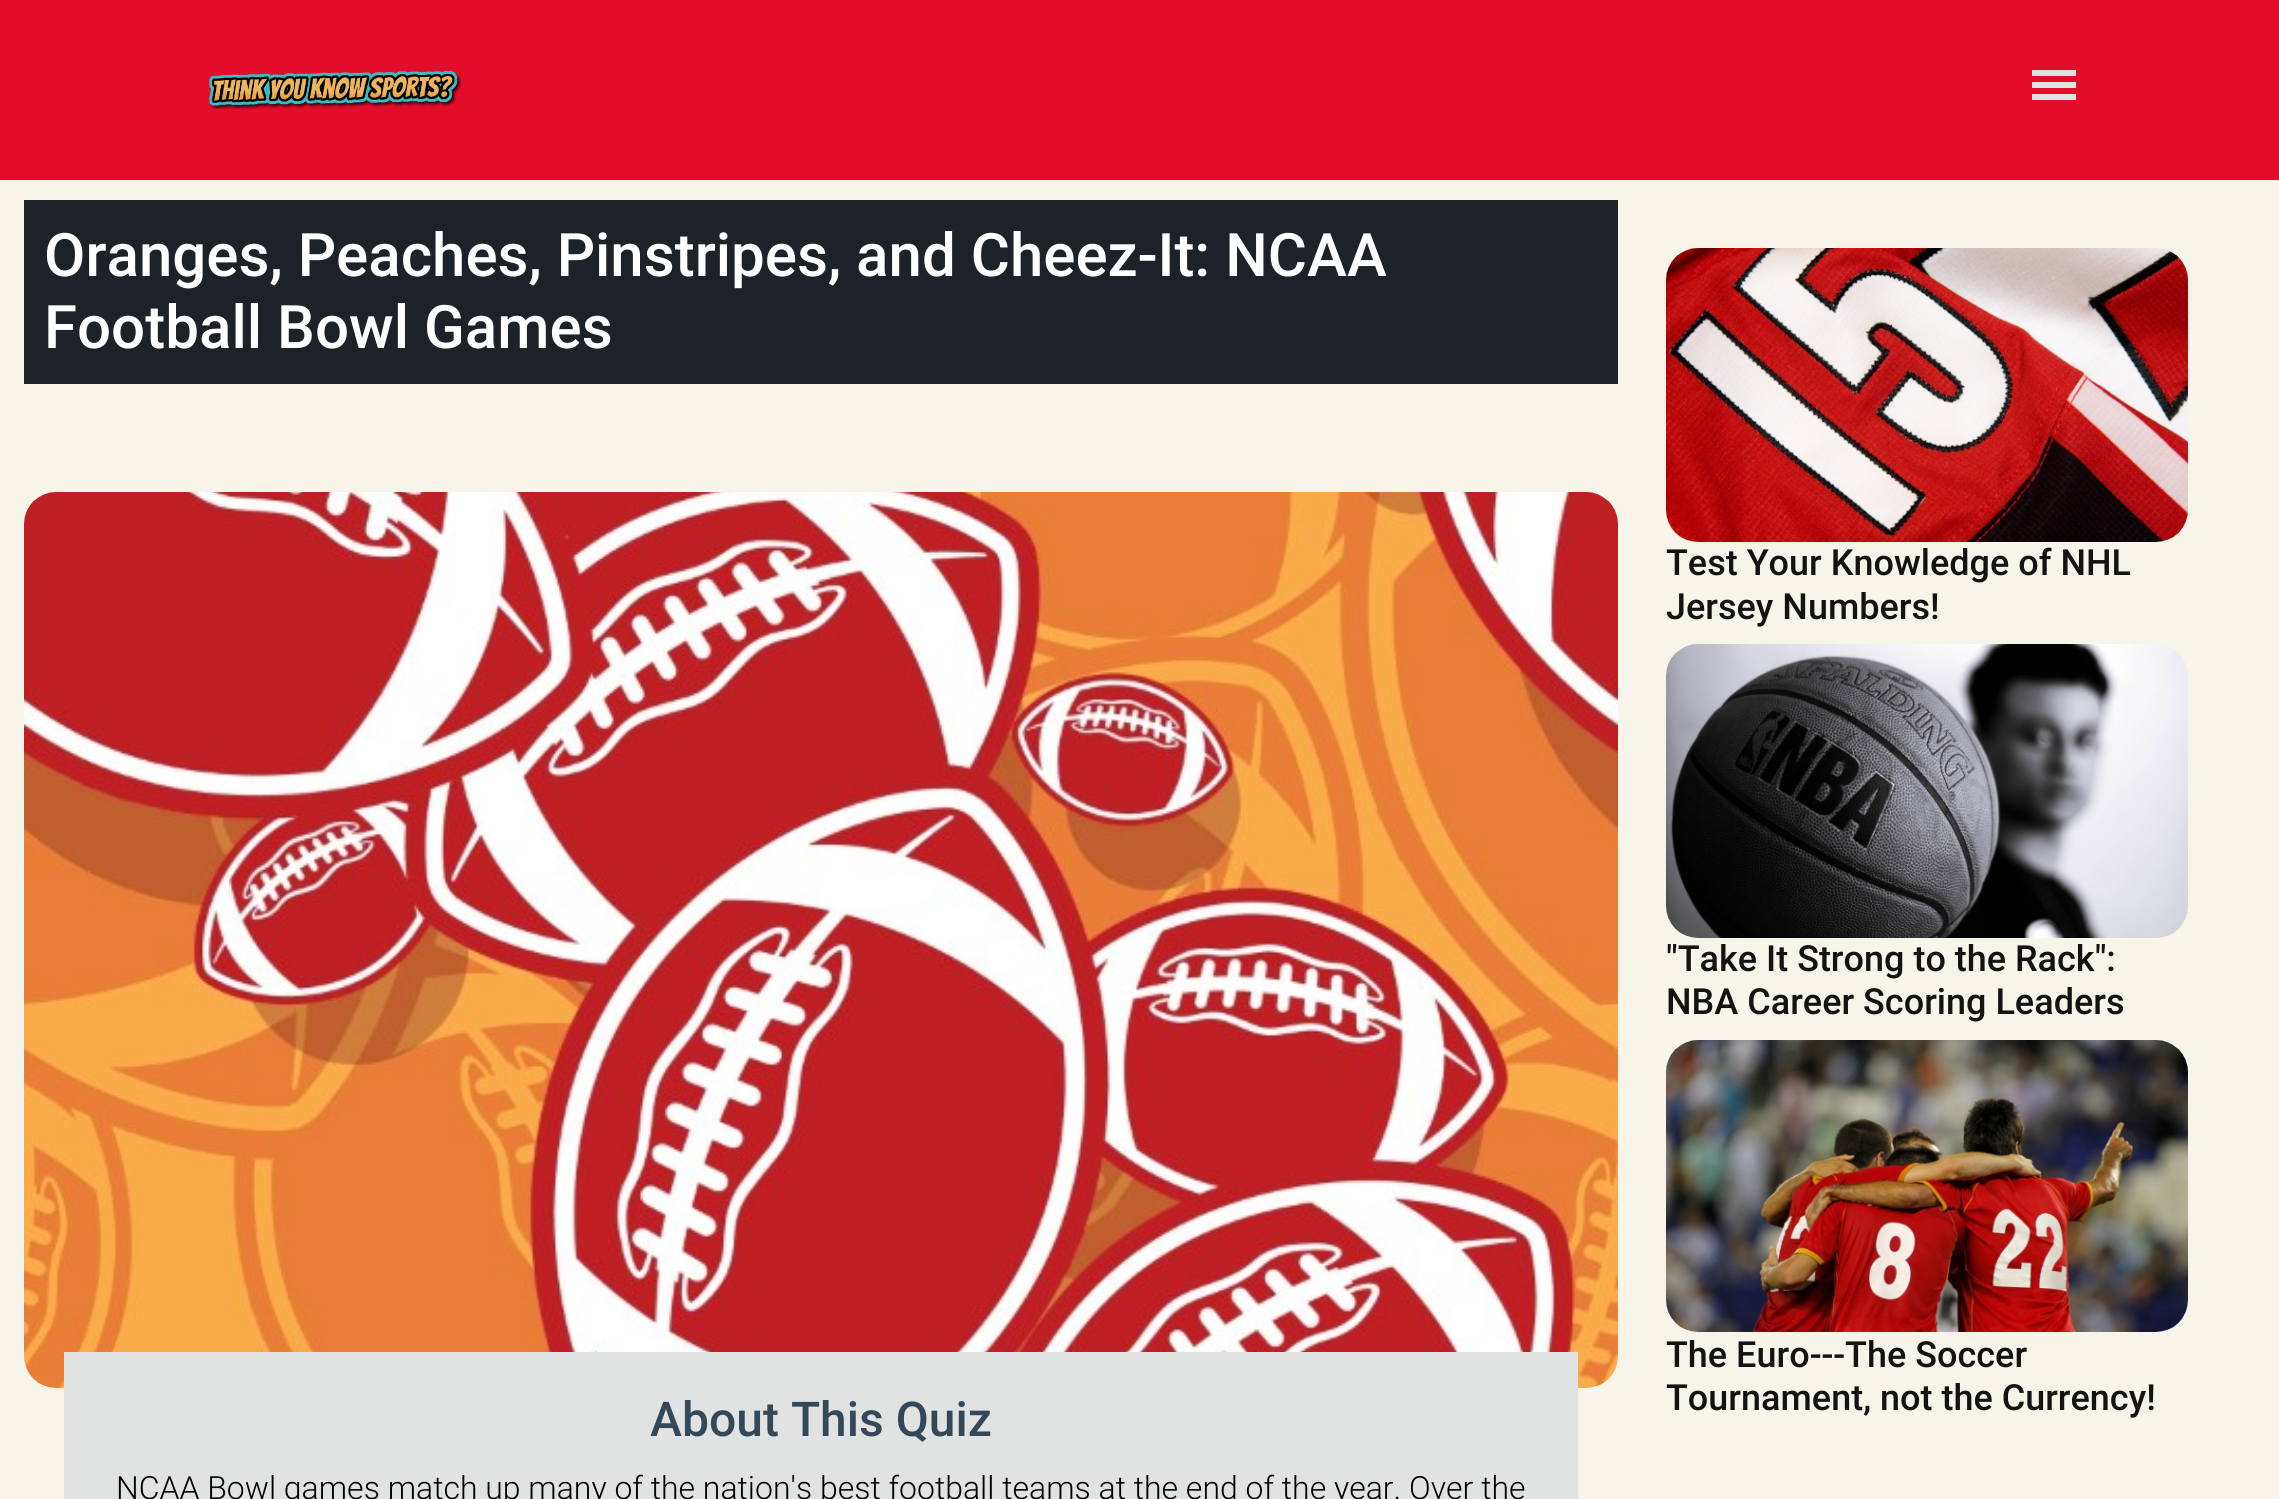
#include <cairo/cairo.h>
#include <math.h>
#include <stddef.h>

static cairo_t *cr;

static void use_color(int r, int g, int b) {
  cairo_set_source_rgb(cr, r / 255.0, g / 255.0, b / 255.0);
}

static void text(double x, double y, const char *s, const char *family, double size, int italic, int bold, int r, int g, int b) {
  cairo_select_font_face(cr, family, italic ? CAIRO_FONT_SLANT_ITALIC : CAIRO_FONT_SLANT_NORMAL,
    bold ? CAIRO_FONT_WEIGHT_BOLD : CAIRO_FONT_WEIGHT_NORMAL);
  cairo_set_font_size(cr, size);
  use_color(r, g, b);
  cairo_move_to(cr, x, y);
  cairo_show_text(cr, s);
}

static void box(double x, double y, double w, double h, int r, int g, int b) {
  use_color(r, g, b);
  cairo_rectangle(cr, x, y, w, h);
  cairo_fill(cr);
}

static void picture(const char *path, double x, double y, double w, double h) {
  cairo_surface_t *image = cairo_image_surface_create_from_png(path);
  cairo_save(cr);
  cairo_set_source_surface(cr, image, x, y);
  cairo_rectangle(cr, x, y, w, h);
  cairo_fill(cr);
  cairo_restore(cr);
  cairo_surface_destroy(image);
}

static void draw(void) {
  use_color(247, 244, 233);
  cairo_paint(cr);
  box(0, 0, 2279, 180, 228, 12, 43);
  picture("img_01.png", 209, 70, 253, 40);
  box(2032, 70, 44, 6, 225, 226, 226);
  box(2032, 82, 44, 6, 225, 226, 226);
  box(2032, 94, 44, 6, 225, 226, 226);
  box(24, 200, 1594, 184, 29, 34, 40);
  picture("img_02.png", 24, 492, 1594, 896);
  box(64, 1352, 1514, 147, 225, 226, 226);
  picture("img_03.png", 1666, 248, 522, 294);
  picture("img_04.png", 1666, 644, 522, 294);
  picture("img_05.png", 1666, 1040, 522, 292);
  text(44, 276, "Oranges, Peaches, Pinstripes, and Cheez-It: NCAA", "Roboto Medium", 60, 0, 0, 255, 255, 255);
  text(44, 348, "Football Bowl Games", "Roboto Medium", 60, 0, 0, 255, 255, 255);
  text(650, 1436, "About This Quiz", "Roboto Medium", 48, 0, 0, 52, 72, 88);
  text(116, 1499, "NCAA Bowl games match up many of the nation's best football teams at the end of the year. Over the", "Roboto Light", 32, 0, 0, 0, 0, 0);
  text(1666, 575, "Test Your Knowledge of NHL", "Roboto Medium", 36, 0, 0, 19, 19, 19);
  text(1666, 619, "Jersey Numbers!", "Roboto Medium", 36, 0, 0, 19, 19, 19);
  text(1666, 971, "\"Take It Strong to the Rack\":", "Roboto Medium", 36, 0, 0, 19, 19, 19);
  text(1666, 1014, "NBA Career Scoring Leaders", "Roboto Medium", 36, 0, 0, 19, 19, 19);
  text(1666, 1367, "The Euro---The Soccer", "Roboto Medium", 36, 0, 0, 19, 19, 19);
  text(1666, 1410, "Tournament, not the Currency!", "Roboto Medium", 36, 0, 0, 19, 19, 19);
}

int main(void) {
  cairo_surface_t *surface = cairo_image_surface_create(CAIRO_FORMAT_RGB24, 2279, 1499);
  cr = cairo_create(surface);
  cairo_font_options_t *options = cairo_font_options_create();
  cairo_font_options_set_hint_metrics(options, CAIRO_HINT_METRICS_OFF);
  cairo_font_options_set_hint_style(options, CAIRO_HINT_STYLE_NONE);
  cairo_set_font_options(cr, options);
  cairo_set_miter_limit(cr, 4);
  draw();
  cairo_surface_write_to_png(surface, "out.png");
  cairo_font_options_destroy(options);
  cairo_destroy(cr);
  cairo_surface_destroy(surface);
  return 0;
}
